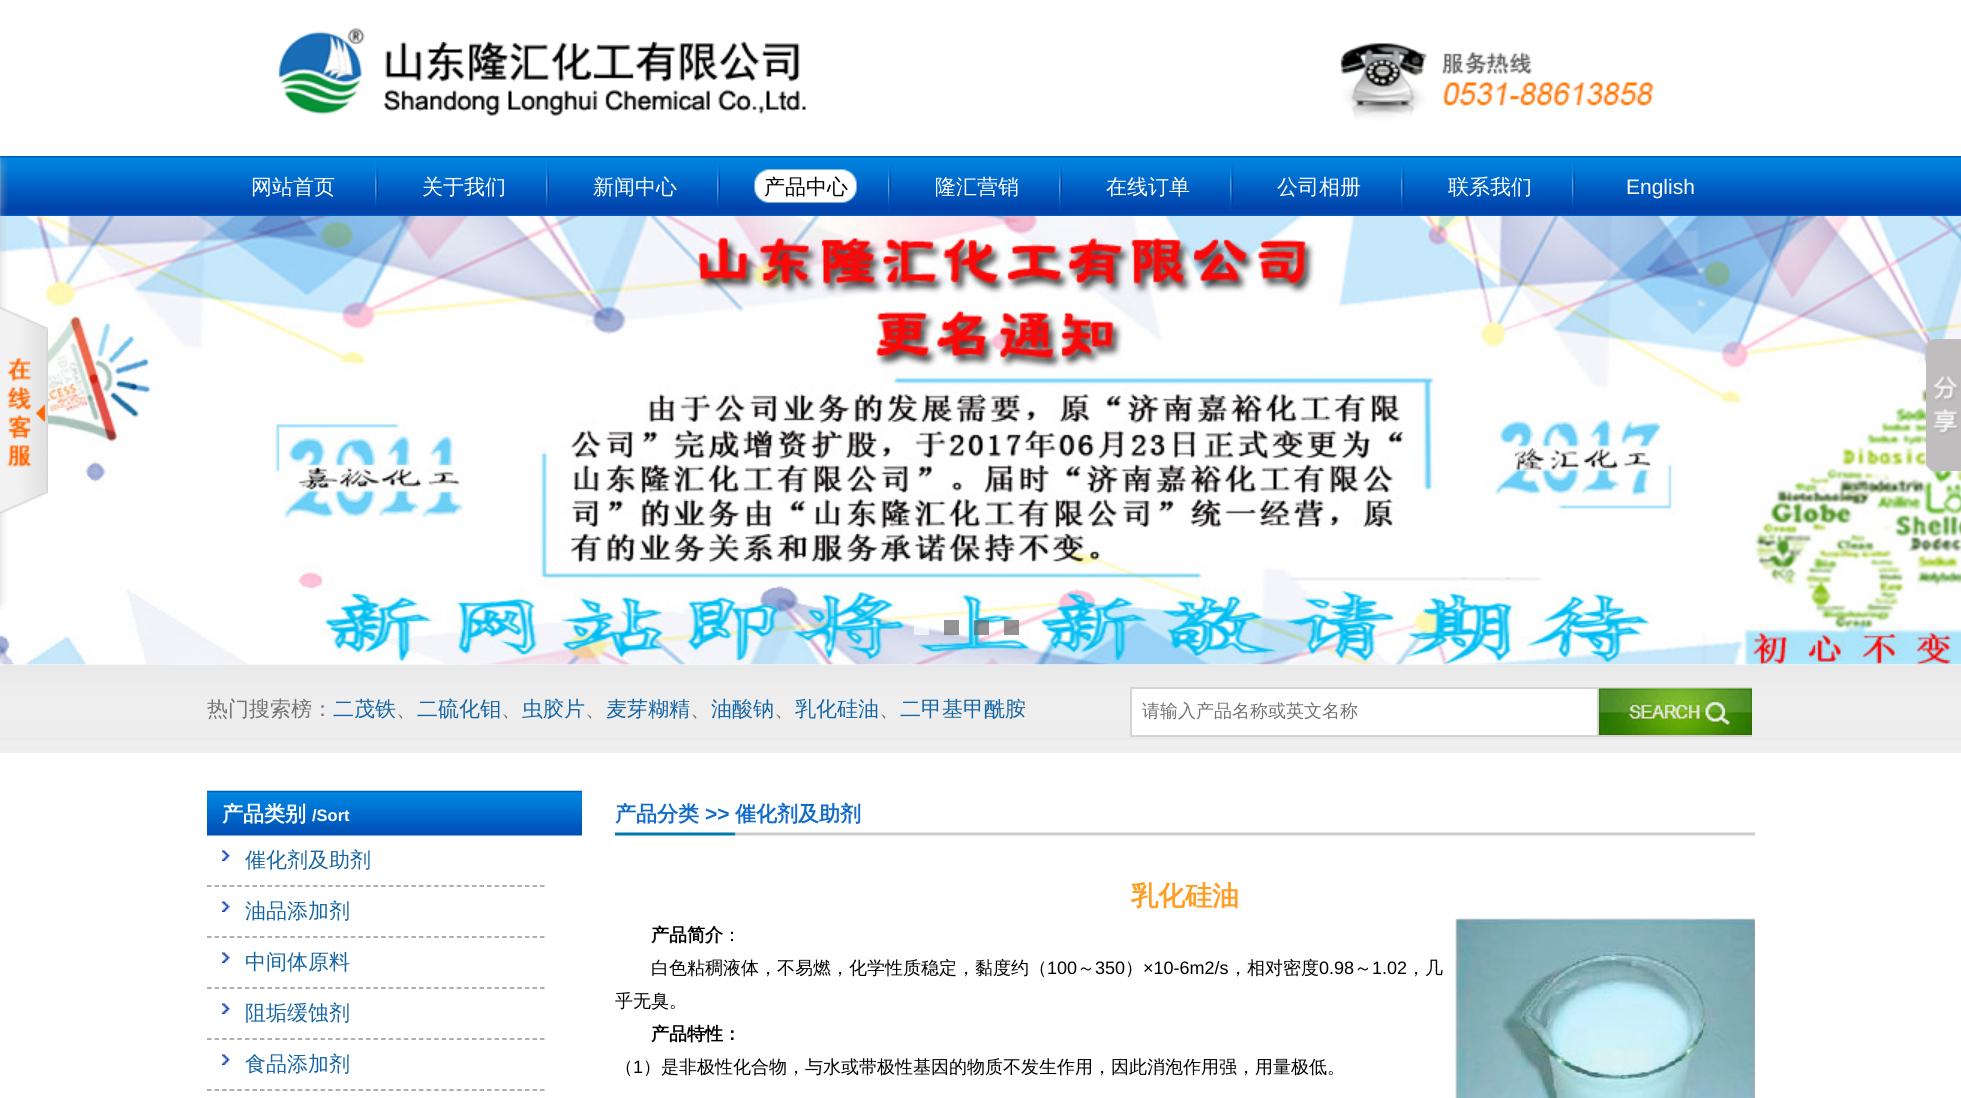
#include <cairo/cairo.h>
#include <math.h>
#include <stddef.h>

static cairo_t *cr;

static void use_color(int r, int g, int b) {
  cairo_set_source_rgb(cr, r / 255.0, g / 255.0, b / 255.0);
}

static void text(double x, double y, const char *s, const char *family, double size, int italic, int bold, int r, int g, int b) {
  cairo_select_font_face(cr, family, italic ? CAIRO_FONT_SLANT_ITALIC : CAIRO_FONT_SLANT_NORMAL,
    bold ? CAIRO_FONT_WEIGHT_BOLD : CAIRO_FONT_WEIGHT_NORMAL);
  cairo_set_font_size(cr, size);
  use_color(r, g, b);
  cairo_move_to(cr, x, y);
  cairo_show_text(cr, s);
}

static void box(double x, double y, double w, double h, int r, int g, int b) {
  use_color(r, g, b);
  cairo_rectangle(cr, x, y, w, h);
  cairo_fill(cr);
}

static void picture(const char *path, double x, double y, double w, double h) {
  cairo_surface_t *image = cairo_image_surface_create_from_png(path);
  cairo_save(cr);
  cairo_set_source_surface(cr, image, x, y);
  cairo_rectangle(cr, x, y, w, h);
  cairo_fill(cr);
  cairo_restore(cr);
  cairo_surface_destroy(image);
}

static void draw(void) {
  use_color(255, 255, 255);
  cairo_paint(cr);
  picture("img_01.png", 278, 28, 528, 88);
  picture("img_02.png", 1340, 43, 314, 78);
  picture("img_07.png", 0, 156, 1961, 60);
  picture("img_03.png", 0, 154, 8, 55);
  picture("img_13.png", 0, 664, 1961, 89);
  picture("img_11.png", 0, 216, 1961, 449);
  picture("img_04.png", 0, 208, 7, 394);
  picture("img_05.png", 0, 601, 7, 9);
  picture("img_06.png", 0, 306, 48, 208);
  picture("img_08.png", 375, 162, 3, 49);
  picture("img_09.png", 546, 162, 3, 49);
  picture("img_08.png", 717, 162, 3, 49);
  picture("img_09.png", 888, 162, 3, 49);
  picture("img_10.png", 754, 169, 103, 34);
  picture("img_08.png", 1059, 162, 3, 49);
  picture("img_08.png", 1230, 162, 3, 49);
  picture("img_09.png", 1401, 162, 3, 49);
  picture("img_09.png", 1572, 162, 3, 49);
  cairo_set_source_rgba(cr, 1, 1, 1, 0.7);
  cairo_rectangle(cr, 914, 620, 15, 15);
  cairo_fill(cr);
  cairo_set_source_rgba(cr, 0.4, 0.4, 0.4, 0.7);
  cairo_rectangle(cr, 944, 620, 15, 15);
  cairo_fill(cr);
  cairo_rectangle(cr, 974, 620, 15, 15);
  cairo_fill(cr);
  cairo_rectangle(cr, 1004, 620, 15, 15);
  cairo_fill(cr);
  picture("img_12.png", 1926, 339, 35, 132);
  use_color(255, 255, 255);
  cairo_rectangle(cr, 1131, 688, 467, 48);
  cairo_fill_preserve(cr);
  use_color(212, 212, 212);
  cairo_stroke(cr);
  box(1599, 687, 153, 50, 212, 212, 212);
  picture("img_14.png", 1599, 688, 153, 47);
  picture("img_15.png", 207, 790, 375, 46);
  picture("img_16.png", 222, 850, 8, 11);
  cairo_new_path(cr);
  cairo_move_to(cr, 207, 886);
  cairo_line_to(cr, 544.5, 886);
  use_color(148, 148, 148);
  cairo_set_line_width(cr, 1.5);
  cairo_set_dash(cr, (double[]){4.5, 3.07}, 2, 0);
  cairo_stroke(cr);
  picture("img_16.png", 222, 901, 8, 11);
  cairo_new_path(cr);
  cairo_move_to(cr, 207, 937);
  cairo_line_to(cr, 544.5, 937);
  cairo_stroke(cr);
  picture("img_16.png", 222, 952, 8, 11);
  cairo_new_path(cr);
  cairo_move_to(cr, 207, 988);
  cairo_line_to(cr, 544.5, 988);
  cairo_stroke(cr);
  picture("img_16.png", 222, 1003, 8, 11);
  cairo_new_path(cr);
  cairo_move_to(cr, 207, 1039);
  cairo_line_to(cr, 544.5, 1039);
  cairo_stroke(cr);
  picture("img_16.png", 222, 1054, 8, 11);
  cairo_new_path(cr);
  cairo_move_to(cr, 207, 1090);
  cairo_line_to(cr, 544.5, 1090);
  cairo_stroke(cr);
  picture("img_17.png", 615, 832, 1140, 4);
  picture("img_18.png", 1455, 918, 300, 180);
  text(251, 194, "网站首页", "WenQuanYi Zen Hei Medium", 21, 0, 0, 255, 255, 255);
  text(422, 194, "关于我们", "WenQuanYi Zen Hei Medium", 21, 0, 0, 255, 255, 255);
  text(593, 194, "新闻中心", "WenQuanYi Zen Hei Medium", 21, 0, 0, 255, 255, 255);
  text(764, 194, "产品中心", "WenQuanYi Zen Hei Medium", 21, 0, 0, 0, 0, 0);
  text(935, 194, "隆汇营销", "WenQuanYi Zen Hei Medium", 21, 0, 0, 255, 255, 255);
  text(1106, 194, "在线订单", "WenQuanYi Zen Hei Medium", 21, 0, 0, 255, 255, 255);
  text(1277, 194, "公司相册", "WenQuanYi Zen Hei Medium", 21, 0, 0, 255, 255, 255);
  text(1448, 194, "联系我们", "WenQuanYi Zen Hei Medium", 21, 0, 0, 255, 255, 255);
  text(1626, 194, "English", "Liberation Sans", 21, 0, 0, 255, 255, 255);
  text(207, 716, "热门搜索榜：", "WenQuanYi Zen Hei Medium", 21, 0, 0, 114, 115, 114);
  text(333, 716, "二茂铁", "WenQuanYi Zen Hei Medium", 21, 0, 0, 22, 101, 163);
  text(396, 716, "、", "WenQuanYi Zen Hei Medium", 21, 0, 0, 114, 115, 114);
  text(417, 716, "二硫化钼", "WenQuanYi Zen Hei Medium", 21, 0, 0, 22, 101, 163);
  text(501, 716, "、", "WenQuanYi Zen Hei Medium", 21, 0, 0, 114, 115, 114);
  text(522, 716, "虫胶片", "WenQuanYi Zen Hei Medium", 21, 0, 0, 22, 101, 163);
  text(585, 716, "、", "WenQuanYi Zen Hei Medium", 21, 0, 0, 114, 115, 114);
  text(606, 716, "麦芽糊精", "WenQuanYi Zen Hei Medium", 21, 0, 0, 22, 101, 163);
  text(690, 716, "、", "WenQuanYi Zen Hei Medium", 21, 0, 0, 114, 115, 114);
  text(711, 716, "油酸钠", "WenQuanYi Zen Hei Medium", 21, 0, 0, 22, 101, 163);
  text(774, 716, "、", "WenQuanYi Zen Hei Medium", 21, 0, 0, 114, 115, 114);
  text(795, 716, "乳化硅油", "WenQuanYi Zen Hei Medium", 21, 0, 0, 22, 101, 163);
  text(879, 716, "、", "WenQuanYi Zen Hei Medium", 21, 0, 0, 114, 115, 114);
  text(900, 716, "二甲基甲酰胺", "WenQuanYi Zen Hei Medium", 21, 0, 0, 22, 101, 163);
  text(1142, 717, "请输入产品名称或英文名称", "WenQuanYi Zen Hei Medium", 18, 0, 0, 114, 115, 114);
  text(222, 821, "产品类别", "WenQuanYi Zen Hei", 21, 0, 1, 255, 255, 255);
  text(312, 821, "/Sort", "Liberation Sans", 16.5, 0, 1, 255, 255, 255);
  text(245, 867, "催化剂及助剂", "WenQuanYi Zen Hei Medium", 21, 0, 0, 22, 101, 163);
  text(245, 918, "油品添加剂", "WenQuanYi Zen Hei Medium", 21, 0, 0, 22, 101, 163);
  text(245, 969, "中间体原料", "WenQuanYi Zen Hei Medium", 21, 0, 0, 22, 101, 163);
  text(245, 1020, "阻垢缓蚀剂", "WenQuanYi Zen Hei Medium", 21, 0, 0, 22, 101, 163);
  text(245, 1071, "食品添加剂", "WenQuanYi Zen Hei Medium", 21, 0, 0, 22, 101, 163);
  text(615, 821, "产品分类", "WenQuanYi Zen Hei", 21, 0, 1, 19, 108, 201);
  text(705, 821, ">>", "Liberation Sans", 21, 0, 1, 19, 108, 201);
  text(735, 821, "催化剂及助剂", "WenQuanYi Zen Hei", 21, 0, 1, 19, 108, 201);
  text(1131, 905, "乳化硅油", "WenQuanYi Zen Hei", 27, 0, 1, 255, 157, 36);
  text(651, 941, "产品简介", "WenQuanYi Zen Hei", 18, 0, 1, 0, 0, 0);
  text(723, 941, "：", "WenQuanYi Zen Hei Medium", 18, 0, 0, 0, 0, 0);
  text(651, 974, "白色粘稠液体，不易燃，化学性质稳定，黏度约（", "WenQuanYi Zen Hei Medium", 18, 0, 0, 0, 0, 0);
  text(1047, 974, "100", "Liberation Sans", 18, 0, 0, 0, 0, 0);
  text(1077, 974, "～", "WenQuanYi Zen Hei Medium", 18, 0, 0, 0, 0, 0);
  text(1095, 974, "350", "Liberation Sans", 18, 0, 0, 0, 0, 0);
  text(1125, 974, "）", "WenQuanYi Zen Hei Medium", 18, 0, 0, 0, 0, 0);
  text(1143, 974, "×10-6m2/s", "Liberation Sans", 18, 0, 0, 0, 0, 0);
  text(1229, 974, "，相对密度", "WenQuanYi Zen Hei Medium", 18, 0, 0, 0, 0, 0);
  text(1319, 974, "0.98", "Liberation Sans", 18, 0, 0, 0, 0, 0);
  text(1354, 974, "～", "WenQuanYi Zen Hei Medium", 18, 0, 0, 0, 0, 0);
  text(1372, 974, "1.02", "Liberation Sans", 18, 0, 0, 0, 0, 0);
  text(1407, 974, "，几", "WenQuanYi Zen Hei Medium", 18, 0, 0, 0, 0, 0);
  text(615, 1007, "乎无臭。", "WenQuanYi Zen Hei Medium", 18, 0, 0, 0, 0, 0);
  text(651, 1040, "产品特性：", "WenQuanYi Zen Hei", 18, 0, 1, 0, 0, 0);
  text(615, 1073, "（", "WenQuanYi Zen Hei Medium", 18, 0, 0, 0, 0, 0);
  text(633, 1073, "1", "Liberation Sans", 18, 0, 0, 0, 0, 0);
  text(643, 1073, "）是非极性化合物，与水或带极性基因的物质不发生作用，因此消泡作用强，用量极低。", "WenQuanYi Zen Hei Medium", 18, 0, 0, 0, 0, 0);
}

int main(void) {
  cairo_surface_t *surface = cairo_image_surface_create(CAIRO_FORMAT_RGB24, 1961, 1098);
  cr = cairo_create(surface);
  cairo_font_options_t *options = cairo_font_options_create();
  cairo_font_options_set_hint_metrics(options, CAIRO_HINT_METRICS_OFF);
  cairo_font_options_set_hint_style(options, CAIRO_HINT_STYLE_NONE);
  cairo_set_font_options(cr, options);
  cairo_set_miter_limit(cr, 4);
  draw();
  cairo_surface_write_to_png(surface, "out.png");
  cairo_font_options_destroy(options);
  cairo_destroy(cr);
  cairo_surface_destroy(surface);
  return 0;
}
